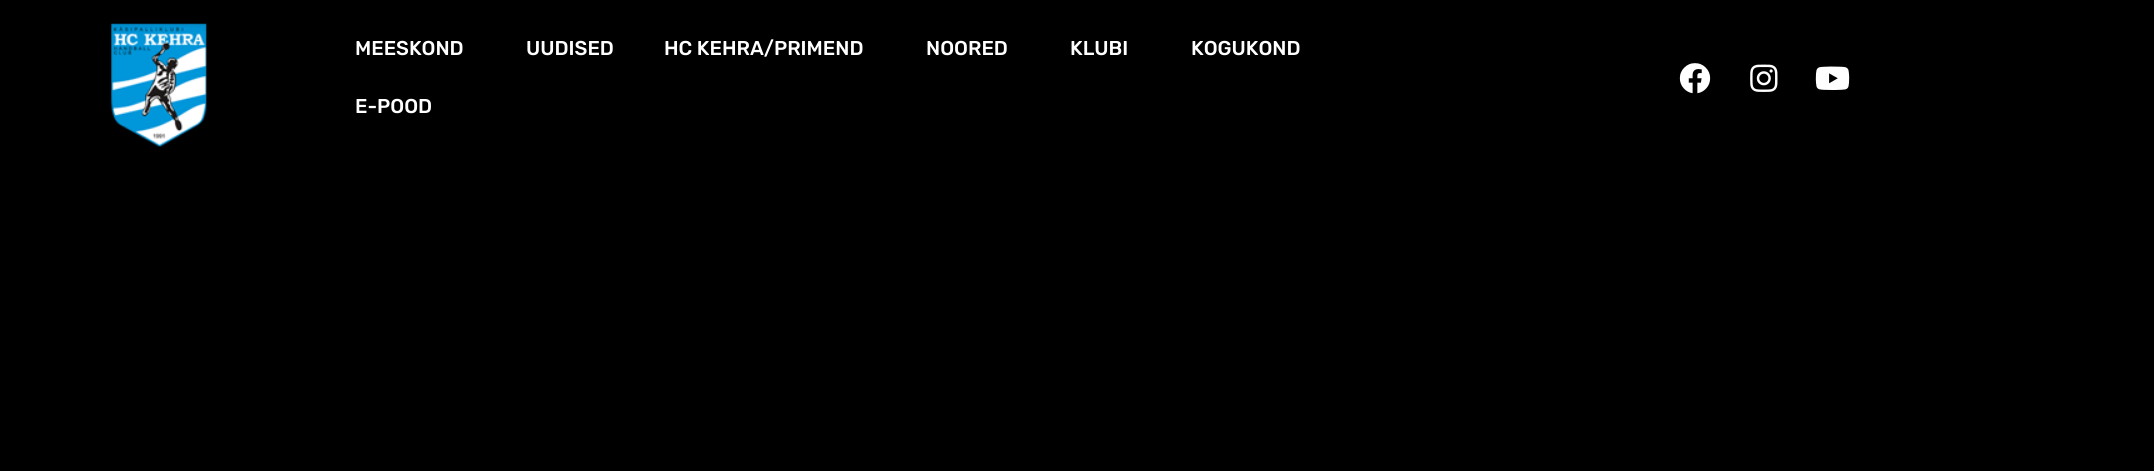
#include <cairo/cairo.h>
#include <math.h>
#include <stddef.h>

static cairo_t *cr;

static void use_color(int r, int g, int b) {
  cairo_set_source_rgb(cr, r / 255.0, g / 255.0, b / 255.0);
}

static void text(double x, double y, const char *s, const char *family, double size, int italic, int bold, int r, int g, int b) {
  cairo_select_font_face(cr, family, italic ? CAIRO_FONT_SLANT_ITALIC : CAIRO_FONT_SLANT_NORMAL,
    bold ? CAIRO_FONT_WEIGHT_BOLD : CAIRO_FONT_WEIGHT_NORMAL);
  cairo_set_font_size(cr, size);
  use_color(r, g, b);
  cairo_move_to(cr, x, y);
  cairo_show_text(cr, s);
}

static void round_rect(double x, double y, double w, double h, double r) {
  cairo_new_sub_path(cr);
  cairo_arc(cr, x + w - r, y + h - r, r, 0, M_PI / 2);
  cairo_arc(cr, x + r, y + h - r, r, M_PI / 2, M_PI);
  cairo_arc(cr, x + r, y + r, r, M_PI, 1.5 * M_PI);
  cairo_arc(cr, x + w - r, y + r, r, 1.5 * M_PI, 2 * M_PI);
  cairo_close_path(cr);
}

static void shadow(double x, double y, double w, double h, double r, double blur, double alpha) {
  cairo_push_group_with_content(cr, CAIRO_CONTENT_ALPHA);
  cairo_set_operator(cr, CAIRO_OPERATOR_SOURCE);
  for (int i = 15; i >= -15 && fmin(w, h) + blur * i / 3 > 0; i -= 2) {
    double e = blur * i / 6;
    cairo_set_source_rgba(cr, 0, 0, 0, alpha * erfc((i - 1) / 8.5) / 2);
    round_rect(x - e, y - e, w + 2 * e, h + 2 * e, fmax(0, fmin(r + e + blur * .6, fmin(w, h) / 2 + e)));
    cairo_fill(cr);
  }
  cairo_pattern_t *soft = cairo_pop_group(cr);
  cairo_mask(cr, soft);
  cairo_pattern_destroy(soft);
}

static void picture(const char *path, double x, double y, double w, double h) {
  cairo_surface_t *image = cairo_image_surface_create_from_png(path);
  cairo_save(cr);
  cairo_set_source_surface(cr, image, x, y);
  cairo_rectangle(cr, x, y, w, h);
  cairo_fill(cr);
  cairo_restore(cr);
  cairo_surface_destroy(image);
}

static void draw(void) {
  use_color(0, 0, 0);
  cairo_paint(cr);
  picture("img_01.png", 111, 23, 96, 124);
  shadow(4, -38, 2147, 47, 0, 12.5, 0.5);
  picture("img_02.png", 1679, 63, 32, 31);
  picture("img_03.png", 1750, 64, 28, 28);
  picture("img_04.png", 1815, 66, 35, 24);
  text(355, 55, "MEESKOND", "Rubik Medium", 20, 0, 0, 255, 255, 255);
  text(526, 55, "UUDISED", "Rubik Medium", 20, 0, 0, 255, 255, 255);
  text(664, 55, "HC KEHRA/PRIMEND", "Rubik Medium", 20, 0, 0, 255, 255, 255);
  text(926, 55, "NOORED", "Rubik Medium", 20, 0, 0, 255, 255, 255);
  text(1070, 55, "KLUBI", "Rubik Medium", 20, 0, 0, 255, 255, 255);
  text(1191, 55, "KOGUKOND", "Rubik Medium", 20, 0, 0, 255, 255, 255);
  text(355, 113, "E-POOD", "Rubik Medium", 20, 0, 0, 255, 255, 255);
}

int main(void) {
  cairo_surface_t *surface = cairo_image_surface_create(CAIRO_FORMAT_RGB24, 2154, 471);
  cr = cairo_create(surface);
  cairo_font_options_t *options = cairo_font_options_create();
  cairo_font_options_set_hint_metrics(options, CAIRO_HINT_METRICS_OFF);
  cairo_font_options_set_hint_style(options, CAIRO_HINT_STYLE_NONE);
  cairo_set_font_options(cr, options);
  cairo_set_miter_limit(cr, 4);
  draw();
  cairo_surface_write_to_png(surface, "out.png");
  cairo_font_options_destroy(options);
  cairo_destroy(cr);
  cairo_surface_destroy(surface);
  return 0;
}
